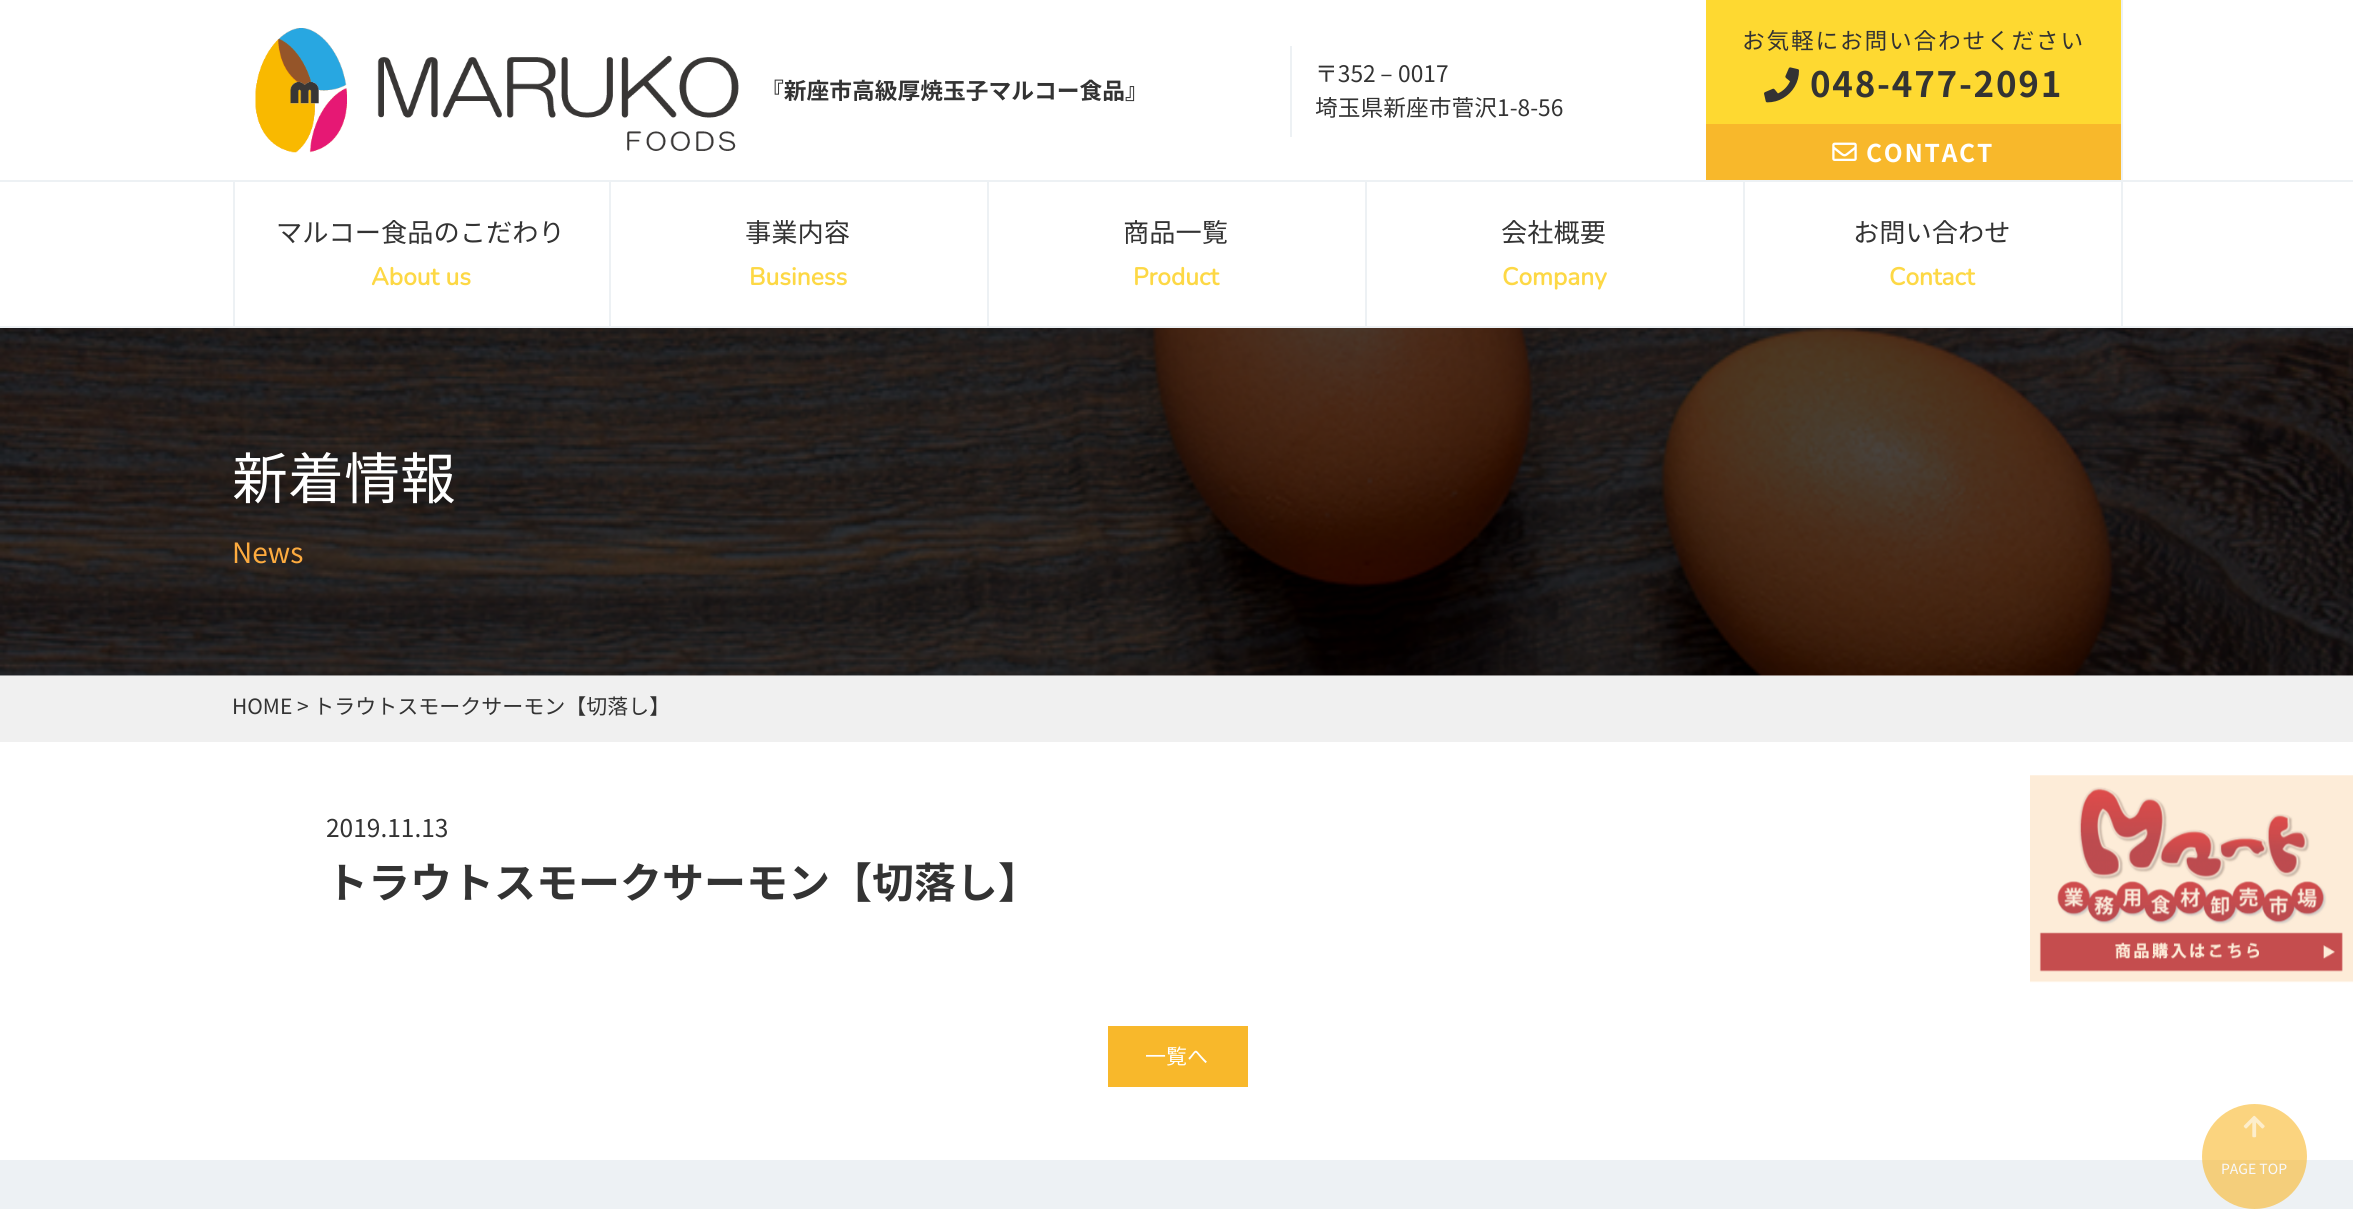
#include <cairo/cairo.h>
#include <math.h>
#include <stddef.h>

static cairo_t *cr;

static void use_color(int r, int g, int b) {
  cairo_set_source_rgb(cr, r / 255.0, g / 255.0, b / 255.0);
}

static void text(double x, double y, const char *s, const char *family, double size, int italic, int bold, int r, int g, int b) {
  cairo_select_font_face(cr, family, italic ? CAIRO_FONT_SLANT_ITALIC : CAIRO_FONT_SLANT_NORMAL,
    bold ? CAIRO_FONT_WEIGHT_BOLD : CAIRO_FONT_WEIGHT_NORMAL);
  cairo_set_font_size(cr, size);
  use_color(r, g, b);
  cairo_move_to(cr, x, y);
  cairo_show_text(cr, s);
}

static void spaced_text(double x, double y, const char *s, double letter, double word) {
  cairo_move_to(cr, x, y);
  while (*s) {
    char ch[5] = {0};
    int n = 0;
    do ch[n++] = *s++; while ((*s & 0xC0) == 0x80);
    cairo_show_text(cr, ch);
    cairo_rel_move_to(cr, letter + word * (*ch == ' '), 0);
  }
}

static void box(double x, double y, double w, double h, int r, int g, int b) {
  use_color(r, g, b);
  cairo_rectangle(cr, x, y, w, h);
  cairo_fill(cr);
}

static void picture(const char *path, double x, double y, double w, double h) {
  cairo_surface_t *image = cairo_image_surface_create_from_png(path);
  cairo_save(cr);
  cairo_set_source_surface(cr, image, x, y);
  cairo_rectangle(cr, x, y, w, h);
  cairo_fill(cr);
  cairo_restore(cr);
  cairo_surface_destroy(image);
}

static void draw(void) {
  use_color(255, 255, 255);
  cairo_paint(cr);
  picture("img_01.png", 255, 28, 484, 125);
  box(1290, 46, 2, 91, 237, 241, 244);
  box(1706, 0, 415, 124, 254, 217, 49);
  box(2121, 0, 2, 180, 237, 241, 244);
  picture("img_02.png", 1764, 67, 35, 36);
  box(1706, 124, 415, 56, 248, 184, 43);
  picture("img_03.png", 1832, 142, 25, 19);
  box(0, 180, 2353, 2, 237, 241, 244);
  box(0, 326, 2353, 2, 237, 241, 244);
  box(609, 182, 2, 144, 237, 241, 244);
  box(233, 182, 2, 144, 237, 241, 244);
  box(987, 182, 2, 144, 237, 241, 244);
  box(1365, 182, 2, 144, 237, 241, 244);
  box(1743, 182, 2, 144, 237, 241, 244);
  box(2121, 182, 2, 144, 237, 241, 244);
  picture("img_04.png", 0, 328, 2353, 348);
  box(0, 676, 2353, 66, 240, 240, 240);
  box(1108, 1026, 140, 61, 248, 184, 43);
  picture("img_05.png", 2030, 775, 323, 208);
  box(0, 1160, 2353, 49, 237, 241, 244);
  cairo_set_source_rgba(cr, 0.973, 0.722, 0.169, 0.6);
  cairo_arc(cr, 2254.5, 1156.5, 52.5, 0, 2 * M_PI);
  cairo_fill(cr);
  picture("img_06.png", 2243, 1115, 22, 23);
  text(761, 99, "『新座市高級厚焼玉子マルコー食品』", "Noto Sans JP", 22.75, 0, 1, 51, 51, 51);
  text(1315, 82, "〒352", "Noto Sans JP", 22.75, 0, 0, 51, 51, 51);
  text(1375, 82, "－", "WenQuanYi Zen Hei Medium", 22.75, 0, 0, 51, 51, 51);
  text(1398, 82, "0017", "Noto Sans JP", 22.75, 0, 0, 51, 51, 51);
  text(1315, 116, "埼玉県新座市菅沢1-8-56", "Noto Sans JP", 22.75, 0, 0, 51, 51, 51);
  spaced_text(1742, 49, "お気軽にお問い合わせください", 1.75, 0);
  cairo_select_font_face(cr, "Noto Sans JP", CAIRO_FONT_SLANT_NORMAL, CAIRO_FONT_WEIGHT_BOLD);
  cairo_set_font_size(cr, 35);
  spaced_text(1810, 97, "048-477-2091", 1.75, 0);
  cairo_set_font_size(cr, 24.5);
  use_color(255, 255, 255);
  spaced_text(1866, 162, "CONTACT", 1.75, 0);
  text(276, 242, "マルコー食品のこだわり", "Noto Sans JP", 26.25, 0, 0, 51, 51, 51);
  text(371, 285, "About us", "Nunito", 24.5, 0, 1, 253, 216, 69);
  text(745, 242, "事業内容", "Noto Sans JP", 26.25, 0, 0, 51, 51, 51);
  text(749, 285, "Business", "Nunito", 24.5, 0, 1, 253, 216, 69);
  text(1123, 242, "商品一覧", "Noto Sans JP", 26.25, 0, 0, 51, 51, 51);
  text(1133, 285, "Product", "Nunito", 24.5, 0, 1, 253, 216, 69);
  text(1501, 242, "会社概要", "Noto Sans JP", 26.25, 0, 0, 51, 51, 51);
  text(1502, 285, "Company", "Nunito", 24.5, 0, 1, 253, 216, 69);
  text(1853, 242, "お問い合わせ", "Noto Sans JP", 26.25, 0, 0, 51, 51, 51);
  text(1889, 285, "Contact", "Nunito", 24.5, 0, 1, 253, 216, 69);
  text(232, 499, "新着情報", "Noto Sans JP", 56, 0, 0, 255, 255, 255);
  text(232, 563, "News", "Noto Sans JP", 28, 0, 0, 253, 171, 63);
  text(232, 714, "HOME > トラウトスモークサーモン【切落し】", "Noto Sans JP", 21, 0, 0, 51, 51, 51);
  text(326, 837, "2019.11.13", "Noto Sans JP", 24.5, 0, 0, 51, 51, 51);
  text(326, 898, "トラウトスモークサーモン【切落し】", "Noto Sans JP", 42, 0, 1, 51, 51, 51);
  text(1145, 1064, "一覧へ", "Noto Sans JP", 21, 0, 0, 255, 255, 255);
  text(2221, 1174, "PAGE TOP", "Noto Sans JP", 14, 0, 0, 248, 249, 251);
}

int main(void) {
  cairo_surface_t *surface = cairo_image_surface_create(CAIRO_FORMAT_RGB24, 2353, 1209);
  cr = cairo_create(surface);
  cairo_font_options_t *options = cairo_font_options_create();
  cairo_font_options_set_hint_metrics(options, CAIRO_HINT_METRICS_OFF);
  cairo_font_options_set_hint_style(options, CAIRO_HINT_STYLE_NONE);
  cairo_set_font_options(cr, options);
  cairo_set_miter_limit(cr, 4);
  draw();
  cairo_surface_write_to_png(surface, "out.png");
  cairo_font_options_destroy(options);
  cairo_destroy(cr);
  cairo_surface_destroy(surface);
  return 0;
}
